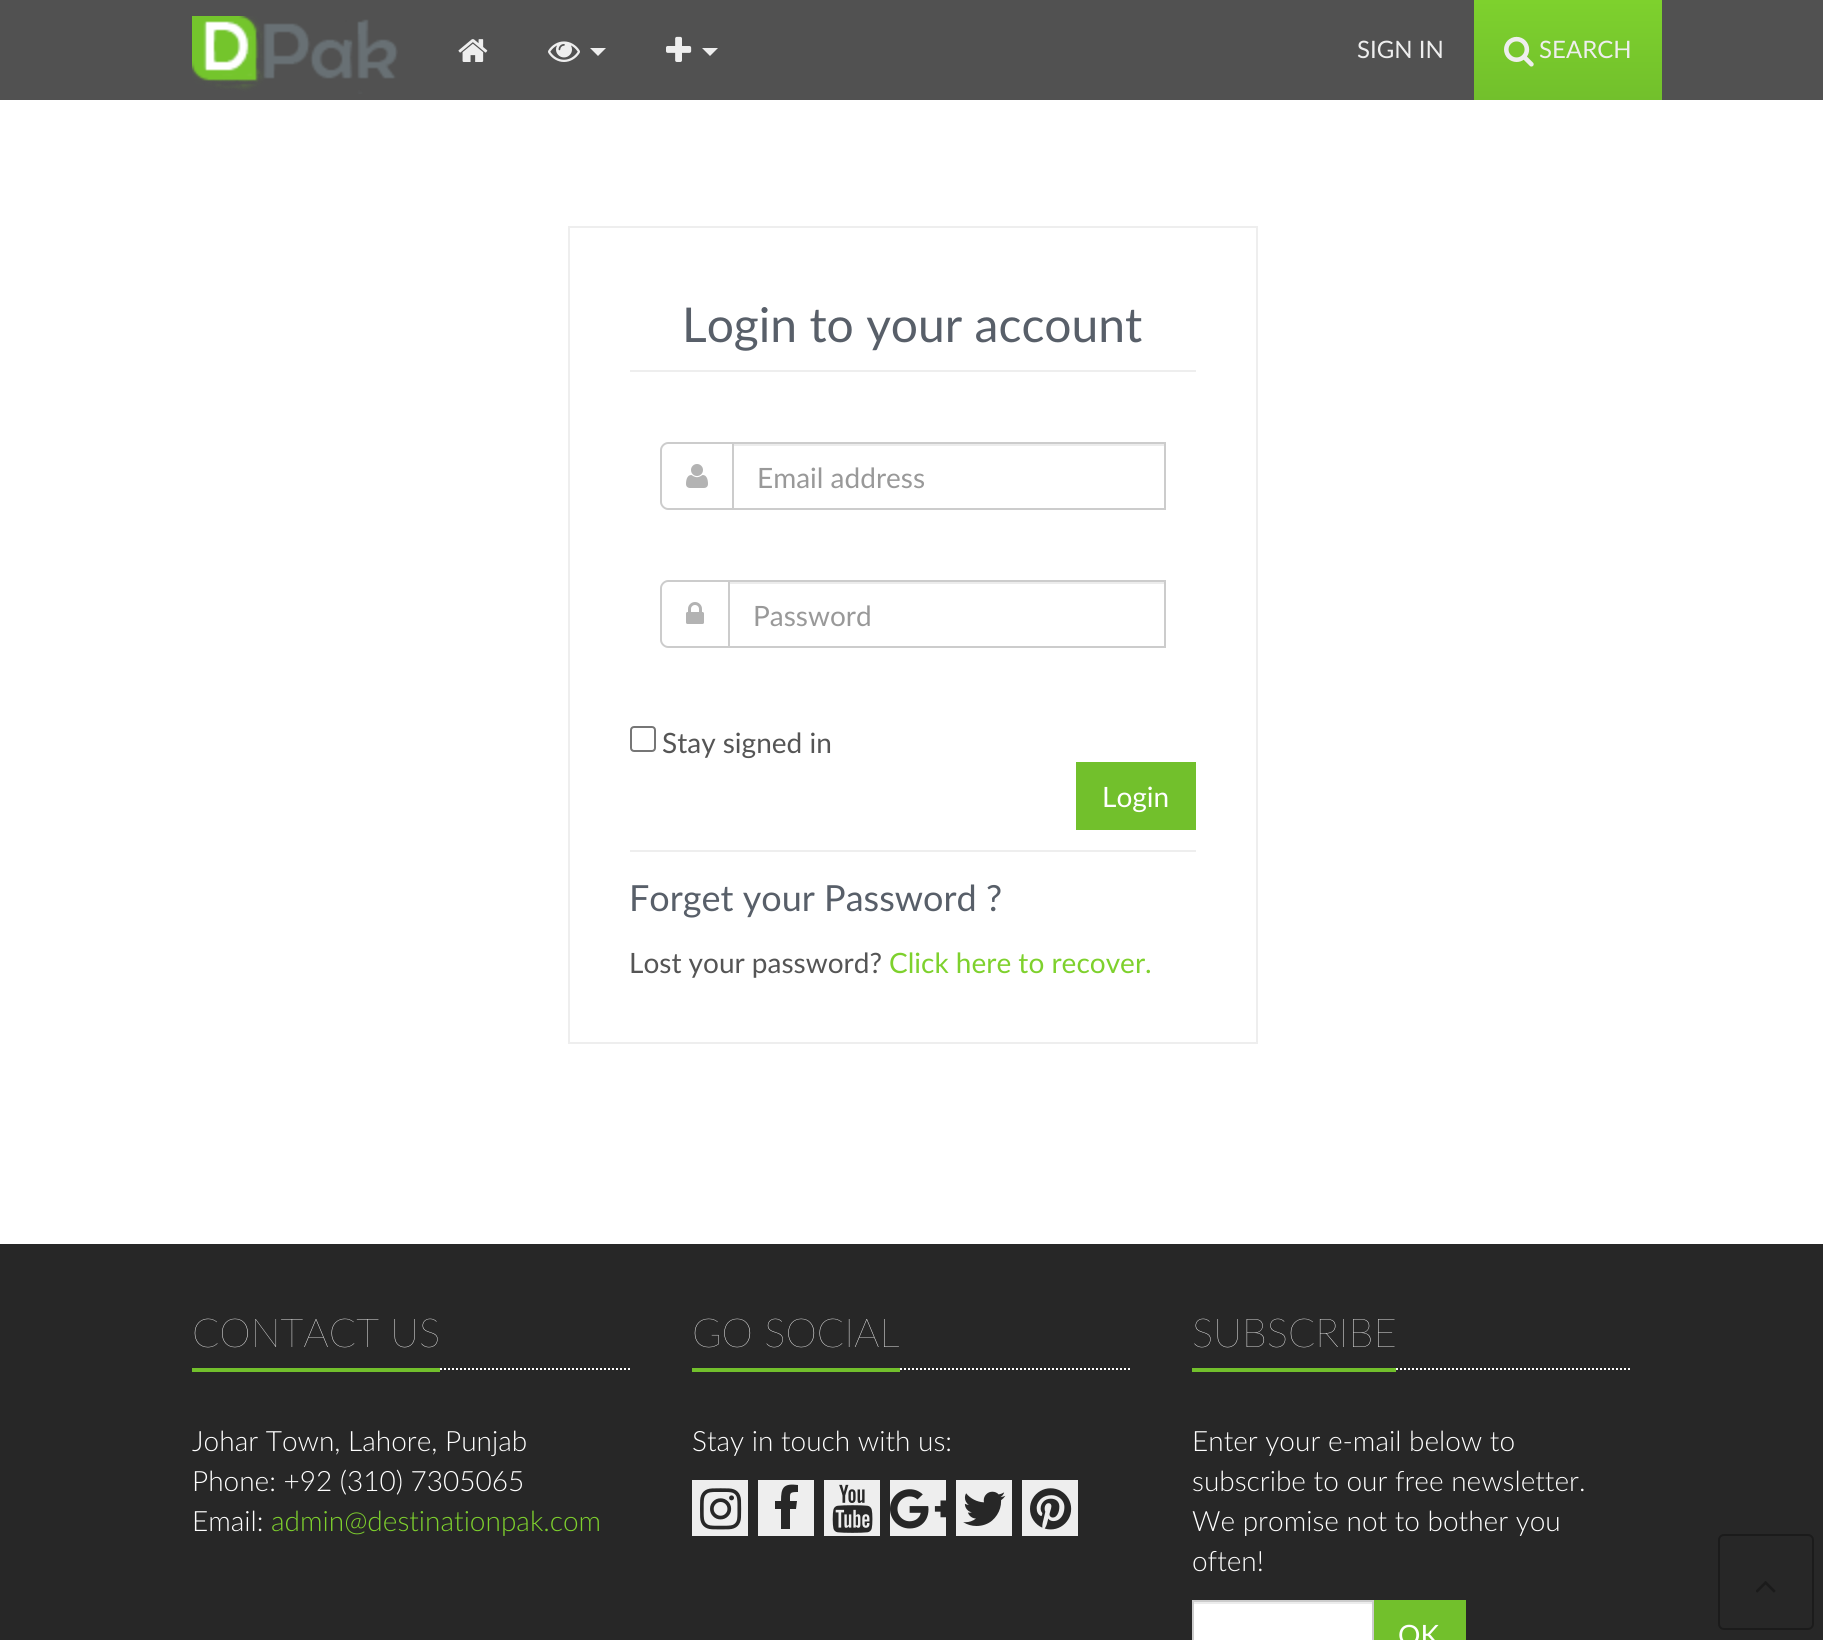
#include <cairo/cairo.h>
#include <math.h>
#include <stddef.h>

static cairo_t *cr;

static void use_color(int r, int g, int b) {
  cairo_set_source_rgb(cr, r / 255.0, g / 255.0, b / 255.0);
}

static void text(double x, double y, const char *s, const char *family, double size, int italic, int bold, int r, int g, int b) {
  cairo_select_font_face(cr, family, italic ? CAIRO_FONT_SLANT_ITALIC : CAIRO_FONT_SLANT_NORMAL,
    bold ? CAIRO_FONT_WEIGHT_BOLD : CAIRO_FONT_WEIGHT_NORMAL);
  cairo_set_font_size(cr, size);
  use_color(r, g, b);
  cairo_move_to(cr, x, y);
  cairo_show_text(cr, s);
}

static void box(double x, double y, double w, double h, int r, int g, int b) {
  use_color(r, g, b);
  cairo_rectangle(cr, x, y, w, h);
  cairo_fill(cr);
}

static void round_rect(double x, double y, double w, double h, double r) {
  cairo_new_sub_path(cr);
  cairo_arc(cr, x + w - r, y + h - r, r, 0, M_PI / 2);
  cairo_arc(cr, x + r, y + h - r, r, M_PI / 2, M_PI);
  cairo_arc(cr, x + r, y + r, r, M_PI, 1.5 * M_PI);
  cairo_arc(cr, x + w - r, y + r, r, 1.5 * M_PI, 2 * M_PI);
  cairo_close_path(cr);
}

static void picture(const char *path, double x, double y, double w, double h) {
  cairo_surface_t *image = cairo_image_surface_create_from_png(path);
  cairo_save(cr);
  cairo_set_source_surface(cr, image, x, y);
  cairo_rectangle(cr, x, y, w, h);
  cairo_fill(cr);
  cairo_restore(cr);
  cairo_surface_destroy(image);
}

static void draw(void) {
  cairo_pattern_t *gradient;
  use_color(255, 255, 255);
  cairo_paint(cr);
  box(0, 0, 1823, 100, 81, 81, 81);
  picture("img_01.png", 192, 16, 206, 78);
  picture("img_02.png", 458, 39, 30, 23);
  picture("img_03.png", 548, 41, 32, 21);
  use_color(238, 238, 238);
  cairo_new_path(cr);
  cairo_move_to(cr, 590, 48);
  cairo_line_to(cr, 606, 48);
  cairo_line_to(cr, 598, 56);
  cairo_close_path(cr);
  cairo_fill(cr);
  picture("img_04.png", 666, 36, 26, 26);
  cairo_new_path(cr);
  cairo_move_to(cr, 702, 48);
  cairo_line_to(cr, 718, 48);
  cairo_line_to(cr, 710, 56);
  cairo_close_path(cr);
  cairo_fill(cr);
  gradient = cairo_pattern_create_linear(1568, 0, 1568, 100);
  cairo_pattern_add_color_stop_rgba(gradient, 0, 0.494, 0.82, 0.176, 1);
  cairo_pattern_add_color_stop_rgba(gradient, 1, 0.447, 0.753, 0.173, 1);
  cairo_set_source(cr, gradient);
  cairo_pattern_destroy(gradient);
  cairo_rectangle(cr, 1474, 0, 188, 100);
  cairo_fill(cr);
  picture("img_05.png", 1504, 36, 30, 31);
  cairo_rectangle(cr, 569, 227, 688, 816);
  use_color(238, 238, 238);
  cairo_stroke(cr);
  box(630, 370, 566, 2, 238, 238, 238);
  use_color(204, 204, 204);
  cairo_set_fill_rule(cr, CAIRO_FILL_RULE_EVEN_ODD);
  cairo_new_path(cr);
  cairo_move_to(cr, 668, 442);
  cairo_line_to(cr, 732, 442);
  cairo_line_to(cr, 732, 510);
  cairo_line_to(cr, 668, 510);
  cairo_curve_to(cr, 664, 510, 660, 506, 660, 502);
  cairo_line_to(cr, 660, 450);
  cairo_curve_to(cr, 660, 446, 664, 442, 668, 442);
  cairo_close_path(cr);
  cairo_move_to(cr, 668, 444);
  cairo_line_to(cr, 732, 444);
  cairo_line_to(cr, 732, 508);
  cairo_line_to(cr, 668, 508);
  cairo_curve_to(cr, 665, 508, 662, 505, 662, 502);
  cairo_line_to(cr, 662, 450);
  cairo_curve_to(cr, 662, 447, 665, 444, 668, 444);
  cairo_close_path(cr);
  cairo_fill(cr);
  picture("img_06.png", 686, 464, 22, 24);
  box(734, 444, 430, 2, 236, 236, 236);
  cairo_rectangle(cr, 733, 443, 432, 66);
  use_color(204, 204, 204);
  cairo_stroke(cr);
  cairo_new_path(cr);
  cairo_move_to(cr, 668, 580);
  cairo_line_to(cr, 728, 580);
  cairo_line_to(cr, 728, 648);
  cairo_line_to(cr, 668, 648);
  cairo_curve_to(cr, 664, 648, 660, 644, 660, 640);
  cairo_line_to(cr, 660, 588);
  cairo_curve_to(cr, 660, 584, 664, 580, 668, 580);
  cairo_close_path(cr);
  cairo_move_to(cr, 668, 582);
  cairo_line_to(cr, 728, 582);
  cairo_line_to(cr, 728, 646);
  cairo_line_to(cr, 668, 646);
  cairo_curve_to(cr, 665, 646, 662, 643, 662, 640);
  cairo_line_to(cr, 662, 588);
  cairo_curve_to(cr, 662, 585, 665, 582, 668, 582);
  cairo_close_path(cr);
  cairo_fill(cr);
  picture("img_07.png", 686, 602, 18, 22);
  box(730, 582, 434, 2, 236, 236, 236);
  cairo_rectangle(cr, 729, 581, 436, 66);
  use_color(204, 204, 204);
  cairo_stroke(cr);
  round_rect(631, 727, 24, 24, 3);
  use_color(118, 118, 118);
  cairo_stroke(cr);
  box(1076, 762, 120, 68, 114, 192, 44);
  box(630, 850, 566, 2, 238, 238, 238);
  box(0, 1244, 1823, 396, 39, 39, 39);
  cairo_new_path(cr);
  cairo_move_to(cr, 192, 1369);
  cairo_line_to(cr, 632, 1369);
  use_color(255, 255, 255);
  cairo_set_dash(cr, (double[]){2, 2}, 2, 0);
  cairo_stroke(cr);
  box(192, 1368, 248, 4, 114, 192, 44);
  cairo_new_path(cr);
  cairo_move_to(cr, 692, 1369);
  cairo_line_to(cr, 1132, 1369);
  use_color(255, 255, 255);
  cairo_stroke(cr);
  box(692, 1368, 208, 4, 114, 192, 44);
  box(692, 1480, 56, 56, 238, 238, 238);
  picture("img_08.png", 700, 1488, 42, 42);
  box(758, 1480, 56, 56, 238, 238, 238);
  use_color(39, 39, 39);
  cairo_set_fill_rule(cr, CAIRO_FILL_RULE_WINDING);
  cairo_new_path(cr);
  cairo_move_to(cr, 798, 1485);
  cairo_line_to(cr, 798, 1492);
  cairo_curve_to(cr, 789, 1492, 790, 1493, 790, 1501);
  cairo_line_to(cr, 797, 1501);
  cairo_line_to(cr, 796, 1509);
  cairo_line_to(cr, 790, 1509);
  cairo_line_to(cr, 790, 1529);
  cairo_line_to(cr, 781, 1529);
  cairo_line_to(cr, 781, 1509);
  cairo_line_to(cr, 775, 1509);
  cairo_line_to(cr, 775, 1501);
  cairo_line_to(cr, 781, 1501);
  cairo_curve_to(cr, 781, 1488, 783, 1483, 798, 1485);
  cairo_close_path(cr);
  cairo_fill(cr);
  box(824, 1480, 56, 56, 238, 238, 238);
  picture("img_09.png", 832, 1484, 41, 49);
  box(890, 1480, 56, 56, 238, 238, 238);
  picture("img_10.png", 890, 1489, 56, 40);
  box(956, 1480, 56, 56, 238, 238, 238);
  picture("img_11.png", 963, 1491, 43, 35);
  box(1022, 1480, 56, 56, 238, 238, 238);
  picture("img_12.png", 1030, 1488, 42, 42);
  cairo_new_path(cr);
  cairo_move_to(cr, 1192, 1369);
  cairo_line_to(cr, 1632, 1369);
  use_color(255, 255, 255);
  cairo_stroke(cr);
  box(1192, 1368, 204, 4, 114, 192, 44);
  box(1194, 1604, 178, 36, 255, 255, 255);
  box(1194, 1602, 178, 2, 236, 236, 236);
  cairo_rectangle(cr, 1193, 1601, 180, 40);
  use_color(204, 204, 204);
  cairo_set_dash(cr, NULL, 0, 0);
  cairo_stroke(cr);
  box(1374, 1600, 92, 40, 114, 192, 44);
  round_rect(1719, 1535, 94, 94, 5);
  use_color(27, 27, 27);
  cairo_stroke(cr);
  picture("img_13.png", 1756, 1581, 20, 12);
  text(1357, 58, "SIGN IN", "Lato", 24, 0, 0, 238, 238, 238);
  text(1539, 58, "SEARCH", "Lato", 24, 0, 0, 238, 238, 238);
  text(682, 342, "Login to your account", "Lato", 48, 0, 0, 88, 95, 105);
  text(757, 488, "Email address", "Lato", 28, 0, 0, 153, 153, 153);
  text(753, 626, "Password", "Lato", 28, 0, 0, 153, 153, 153);
  text(662, 753, "Stay signed in", "Lato", 28, 0, 0, 85, 85, 85);
  text(1102, 807, "Login", "Lato", 28, 0, 0, 255, 255, 255);
  text(629, 911, "Forget your Password ?", "Lato", 36, 0, 0, 88, 95, 105);
  text(629, 973, "Lost your password?", "Lato", 28, 0, 0, 85, 85, 85);
  text(889, 973, "Click here to recover.", "Lato", 28, 0, 0, 126, 209, 45);
  text(192, 1347, "CONTACT US", "Lato ExtraLight", 40, 0, 0, 255, 255, 255);
  text(192, 1451, "Johar Town, Lahore, Punjab", "Lato Light", 28, 0, 0, 255, 255, 255);
  text(192, 1491, "Phone: +92 (310) 7305065", "Lato Light", 28, 0, 0, 255, 255, 255);
  text(192, 1531, "Email:", "Lato Light", 28, 0, 0, 255, 255, 255);
  text(271, 1531, "admin@destinationpak.com", "Lato Light", 28, 0, 0, 126, 209, 45);
  text(692, 1347, "GO SOCIAL", "Lato ExtraLight", 40, 0, 0, 255, 255, 255);
  text(692, 1451, "Stay in touch with us:", "Lato Light", 28, 0, 0, 255, 255, 255);
  text(1192, 1347, "SUBSCRIBE", "Lato ExtraLight", 40, 0, 0, 255, 255, 255);
  text(1192, 1451, "Enter your e-mail below to", "Lato Light", 28, 0, 0, 255, 255, 255);
  text(1192, 1491, "subscribe to our free newsletter.", "Lato Light", 28, 0, 0, 255, 255, 255);
  text(1192, 1531, "We promise not to bother you", "Lato Light", 28, 0, 0, 255, 255, 255);
  text(1192, 1571, "often!", "Lato Light", 28, 0, 0, 255, 255, 255);
  text(1398, 1645, "OK", "Lato", 28, 0, 0, 255, 255, 255);
}

int main(void) {
  cairo_surface_t *surface = cairo_image_surface_create(CAIRO_FORMAT_RGB24, 1823, 1640);
  cr = cairo_create(surface);
  cairo_font_options_t *options = cairo_font_options_create();
  cairo_font_options_set_hint_metrics(options, CAIRO_HINT_METRICS_OFF);
  cairo_font_options_set_hint_style(options, CAIRO_HINT_STYLE_NONE);
  cairo_set_font_options(cr, options);
  cairo_set_miter_limit(cr, 4);
  draw();
  cairo_surface_write_to_png(surface, "out.png");
  cairo_font_options_destroy(options);
  cairo_destroy(cr);
  cairo_surface_destroy(surface);
  return 0;
}
